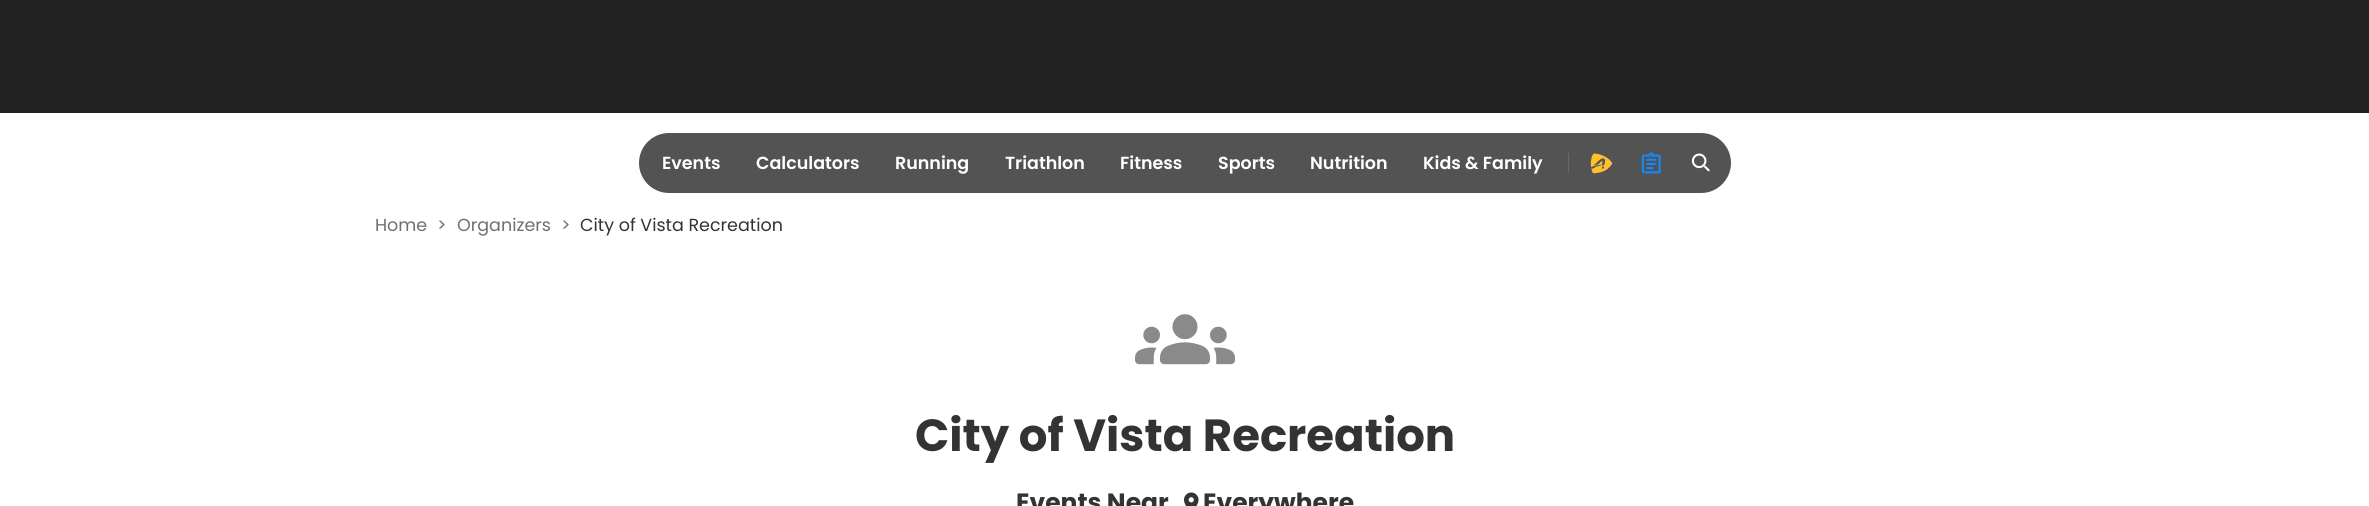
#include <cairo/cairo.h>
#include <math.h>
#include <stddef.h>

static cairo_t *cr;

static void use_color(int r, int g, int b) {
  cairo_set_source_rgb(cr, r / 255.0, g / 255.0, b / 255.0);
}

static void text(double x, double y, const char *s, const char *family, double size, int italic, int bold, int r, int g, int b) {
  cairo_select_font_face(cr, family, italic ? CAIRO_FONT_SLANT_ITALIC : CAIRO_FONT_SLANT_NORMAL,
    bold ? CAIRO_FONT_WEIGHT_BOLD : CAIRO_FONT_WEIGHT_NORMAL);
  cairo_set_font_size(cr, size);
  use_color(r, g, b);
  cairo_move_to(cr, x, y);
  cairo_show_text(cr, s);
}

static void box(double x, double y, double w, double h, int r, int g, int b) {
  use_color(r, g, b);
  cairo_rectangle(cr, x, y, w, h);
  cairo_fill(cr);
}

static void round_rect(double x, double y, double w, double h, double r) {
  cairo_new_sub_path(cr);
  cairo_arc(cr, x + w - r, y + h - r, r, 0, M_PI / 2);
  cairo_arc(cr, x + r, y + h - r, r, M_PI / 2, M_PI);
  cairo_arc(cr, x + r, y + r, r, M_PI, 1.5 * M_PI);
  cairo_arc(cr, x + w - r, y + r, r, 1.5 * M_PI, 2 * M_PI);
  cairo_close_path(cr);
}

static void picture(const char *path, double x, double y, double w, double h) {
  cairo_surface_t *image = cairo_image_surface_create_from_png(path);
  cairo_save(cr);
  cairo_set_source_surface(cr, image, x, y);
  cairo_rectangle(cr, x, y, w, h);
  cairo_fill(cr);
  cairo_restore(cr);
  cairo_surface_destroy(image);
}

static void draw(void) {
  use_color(255, 255, 255);
  cairo_paint(cr);
  box(0, 0, 2369, 113, 34, 34, 34);
  use_color(83, 83, 83);
  round_rect(639, 133, 1092, 60, 30);
  cairo_fill(cr);
  box(1568, 153, 1, 20, 104, 104, 104);
  picture("img_01.png", 1590, 153, 23, 21);
  picture("img_02.png", 1641, 152, 20, 22);
  picture("img_03.png", 1691, 153, 19, 19);
  picture("img_04.png", 1135, 314, 100, 51);
  picture("img_05.png", 1184, 492, 15, 14);
  text(662, 169, "Events", "Poppins SemiBold", 17.5, 0, 0, 255, 255, 255);
  text(756, 169, "Calculators", "Poppins SemiBold", 17.5, 0, 0, 255, 255, 255);
  text(895, 169, "Running", "Poppins SemiBold", 17.5, 0, 0, 255, 255, 255);
  text(1005, 169, "Triathlon", "Poppins SemiBold", 17.5, 0, 0, 255, 255, 255);
  text(1120, 169, "Fitness", "Poppins SemiBold", 17.5, 0, 0, 255, 255, 255);
  text(1218, 169, "Sports", "Poppins SemiBold", 17.5, 0, 0, 255, 255, 255);
  text(1310, 169, "Nutrition", "Poppins SemiBold", 17.5, 0, 0, 255, 255, 255);
  text(1423, 169, "Kids & Family", "Poppins SemiBold", 17.5, 0, 0, 255, 255, 255);
  text(375, 231, "Home", "Poppins", 17.5, 0, 0, 112, 112, 112);
  text(437, 231, ">", "Poppins", 17.5, 0, 0, 112, 112, 112);
  text(457, 231, "Organizers", "Poppins", 17.5, 0, 0, 112, 112, 112);
  text(561, 231, ">", "Poppins", 17.5, 0, 0, 112, 112, 112);
  text(580, 231, "City of Vista Recreation", "Poppins", 17.5, 0, 0, 51, 51, 51);
  text(915, 451, "City of Vista Recreation", "Poppins", 45, 0, 1, 51, 51, 51);
  text(1016, 511, "Events Near", "Poppins", 25, 0, 1, 51, 51, 51);
  text(1203, 511, "Everywhere", "Poppins", 25, 0, 1, 51, 51, 51);
}

int main(void) {
  cairo_surface_t *surface = cairo_image_surface_create(CAIRO_FORMAT_RGB24, 2369, 506);
  cr = cairo_create(surface);
  cairo_font_options_t *options = cairo_font_options_create();
  cairo_font_options_set_hint_metrics(options, CAIRO_HINT_METRICS_OFF);
  cairo_font_options_set_hint_style(options, CAIRO_HINT_STYLE_NONE);
  cairo_set_font_options(cr, options);
  cairo_set_miter_limit(cr, 4);
  draw();
  cairo_surface_write_to_png(surface, "out.png");
  cairo_font_options_destroy(options);
  cairo_destroy(cr);
  cairo_surface_destroy(surface);
  return 0;
}
